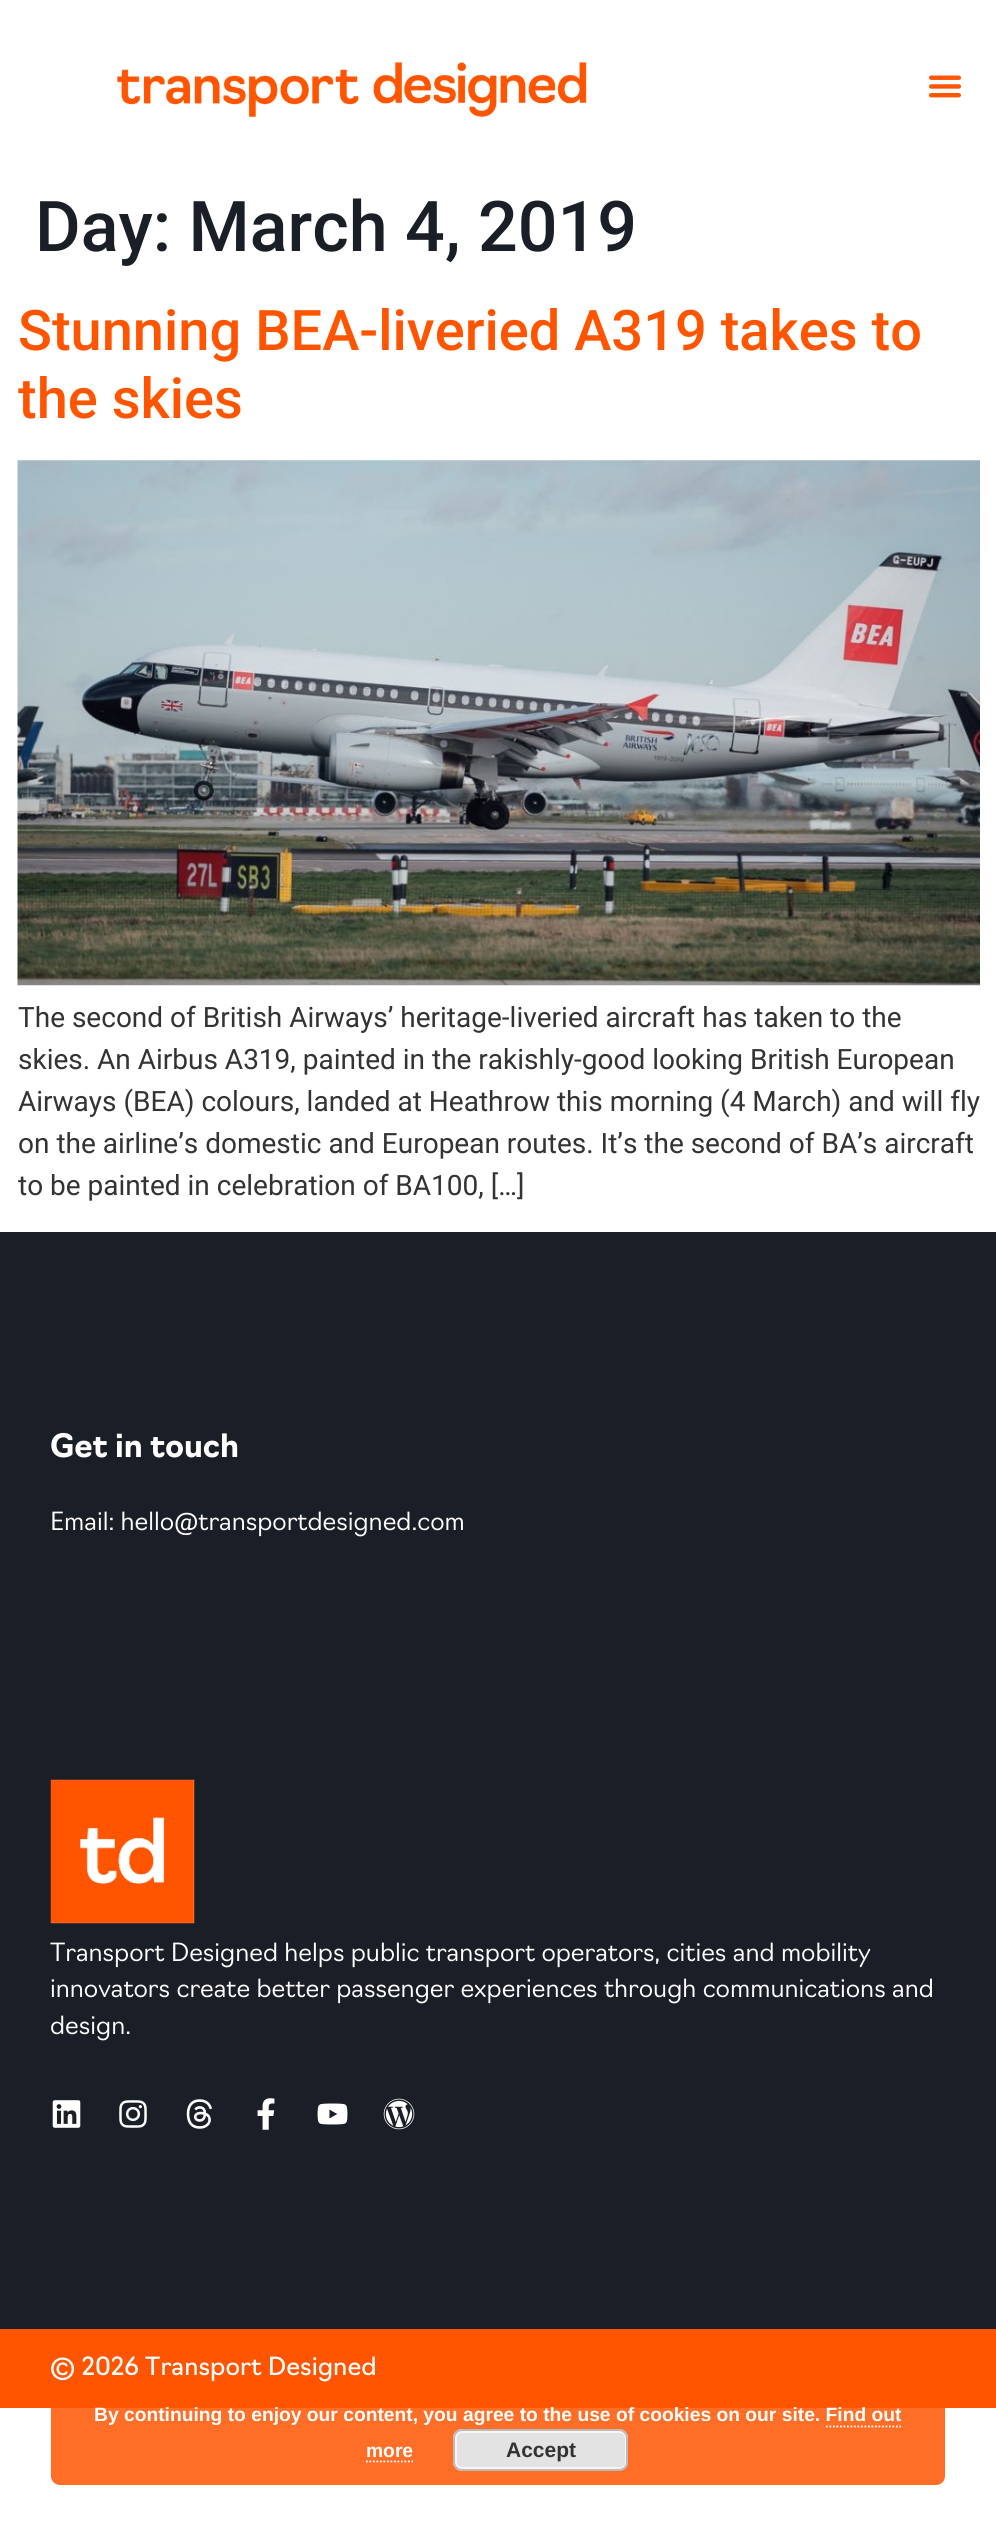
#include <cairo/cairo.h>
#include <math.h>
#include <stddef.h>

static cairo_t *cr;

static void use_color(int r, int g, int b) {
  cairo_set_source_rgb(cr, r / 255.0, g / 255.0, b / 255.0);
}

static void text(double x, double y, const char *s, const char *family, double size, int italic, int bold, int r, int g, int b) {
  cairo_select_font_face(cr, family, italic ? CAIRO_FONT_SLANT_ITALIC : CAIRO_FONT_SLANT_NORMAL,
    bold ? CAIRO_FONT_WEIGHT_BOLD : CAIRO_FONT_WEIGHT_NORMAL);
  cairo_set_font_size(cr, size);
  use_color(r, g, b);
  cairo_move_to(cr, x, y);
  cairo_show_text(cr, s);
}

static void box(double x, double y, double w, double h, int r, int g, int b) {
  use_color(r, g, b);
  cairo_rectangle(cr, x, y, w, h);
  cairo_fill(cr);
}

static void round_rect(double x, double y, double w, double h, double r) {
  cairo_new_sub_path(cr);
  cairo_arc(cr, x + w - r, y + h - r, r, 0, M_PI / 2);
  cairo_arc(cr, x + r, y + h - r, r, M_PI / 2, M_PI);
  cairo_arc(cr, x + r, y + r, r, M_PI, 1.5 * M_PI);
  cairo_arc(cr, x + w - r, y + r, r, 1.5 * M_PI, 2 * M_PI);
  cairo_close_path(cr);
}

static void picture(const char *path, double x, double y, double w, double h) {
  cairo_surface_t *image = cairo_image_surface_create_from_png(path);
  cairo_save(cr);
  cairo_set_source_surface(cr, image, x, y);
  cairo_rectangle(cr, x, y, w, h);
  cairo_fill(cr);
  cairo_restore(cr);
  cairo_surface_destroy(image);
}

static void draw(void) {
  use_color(255, 255, 255);
  cairo_paint(cr);
  picture("img_01.png", 117, 62, 470, 55);
  picture("img_02.png", 929, 75, 32, 23);
  picture("img_03.png", 17, 460, 963, 526);
  box(0, 1232, 996, 1097, 26, 30, 38);
  picture("img_04.png", 50, 1779, 145, 145);
  picture("img_05.png", 52, 2100, 29, 28);
  picture("img_06.png", 119, 2100, 28, 28);
  picture("img_07.png", 186, 2099, 27, 30);
  picture("img_08.png", 257, 2098, 18, 32);
  picture("img_09.png", 317, 2103, 31, 22);
  picture("img_10.png", 383, 2098, 32, 32);
  box(0, 2329, 996, 79, 255, 85, 0);
  cairo_set_source_rgba(cr, 1, 0.333, 0, 0.85);
  round_rect(51, 2387, 894, 98, 9);
  cairo_fill(cr);
  cairo_new_path(cr);
  cairo_move_to(cr, 826, 2426.5);
  cairo_line_to(cr, 901, 2426.5);
  use_color(255, 255, 255);
  cairo_set_line_width(cr, 1.8);
  cairo_set_dash(cr, (double[]){1.75, 1.75}, 2, 0);
  cairo_stroke(cr);
  cairo_new_path(cr);
  cairo_move_to(cr, 366, 2461.5);
  cairo_line_to(cr, 413, 2461.5);
  cairo_stroke(cr);
  use_color(227, 227, 227);
  round_rect(453, 2429, 175, 42, 9);
  cairo_fill(cr);
  round_rect(456, 2432, 170, 36, 6);
  use_color(246, 246, 246);
  cairo_set_line_width(cr, 2);
  cairo_set_dash(cr, NULL, 0, 0);
  cairo_stroke(cr);
  round_rect(454, 2430, 173, 40, 8);
  use_color(187, 187, 187);
  cairo_stroke(cr);
  text(35, 251, "Day: March 4, 2019", "Roboto Medium", 70, 0, 0, 26, 30, 38);
  text(18, 350, "Stunning BEA-liveried A319 takes to", "Roboto Medium", 56, 0, 0, 255, 85, 0);
  text(18, 418, "the skies", "Roboto Medium", 56, 0, 0, 255, 85, 0);
  text(18, 1027, "The second of British Airways’ heritage-liveried aircraft has taken to the", "Roboto", 28, 0, 0, 51, 51, 51);
  text(18, 1069, "skies. An Airbus A319, painted in the rakishly-good looking British European", "Roboto", 28, 0, 0, 51, 51, 51);
  text(18, 1111, "Airways (BEA) colours, landed at Heathrow this morning (4 March) and will fly", "Roboto", 28, 0, 0, 51, 51, 51);
  text(18, 1153, "on the airline’s domestic and European routes. It’s the second of BA’s aircraft", "Roboto", 28, 0, 0, 51, 51, 51);
  text(18, 1195, "to be painted in celebration of BA100, […]", "Roboto", 28, 0, 0, 51, 51, 51);
  text(50, 1457, "Get in touch", "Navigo", 31.5, 0, 1, 255, 255, 255);
  text(50, 1530, "Email: hello@transportdesigned.com", "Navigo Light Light", 24.5, 0, 0, 255, 255, 255);
  text(50, 1961, "Transport Designed helps public transport operators, cities and mobility", "Navigo Light Light", 24.5, 0, 0, 255, 255, 255);
  text(50, 1997, "innovators create better passenger experiences through communications and", "Navigo Light Light", 24.5, 0, 0, 255, 255, 255);
  text(50, 2034, "design.", "Navigo Light Light", 24.5, 0, 0, 255, 255, 255);
  text(50, 2375, "© 2026 Transport Designed", "Navigo", 24.5, 0, 0, 255, 255, 255);
  text(94, 2421, "By continuing to enjoy our content, you agree to the use of cookies on our site. Find out", "Liberation Sans", 19.25, 0, 1, 255, 255, 255);
  text(366, 2457, "more", "Liberation Sans", 19.25, 0, 1, 255, 255, 255);
  text(506, 2457, "Accept", "Liberation Sans", 21, 0, 1, 51, 51, 51);
}

int main(void) {
  cairo_surface_t *surface = cairo_image_surface_create(CAIRO_FORMAT_RGB24, 996, 2536);
  cr = cairo_create(surface);
  cairo_font_options_t *options = cairo_font_options_create();
  cairo_font_options_set_hint_metrics(options, CAIRO_HINT_METRICS_OFF);
  cairo_font_options_set_hint_style(options, CAIRO_HINT_STYLE_NONE);
  cairo_set_font_options(cr, options);
  cairo_set_miter_limit(cr, 4);
  draw();
  cairo_surface_write_to_png(surface, "out.png");
  cairo_font_options_destroy(options);
  cairo_destroy(cr);
  cairo_surface_destroy(surface);
  return 0;
}
